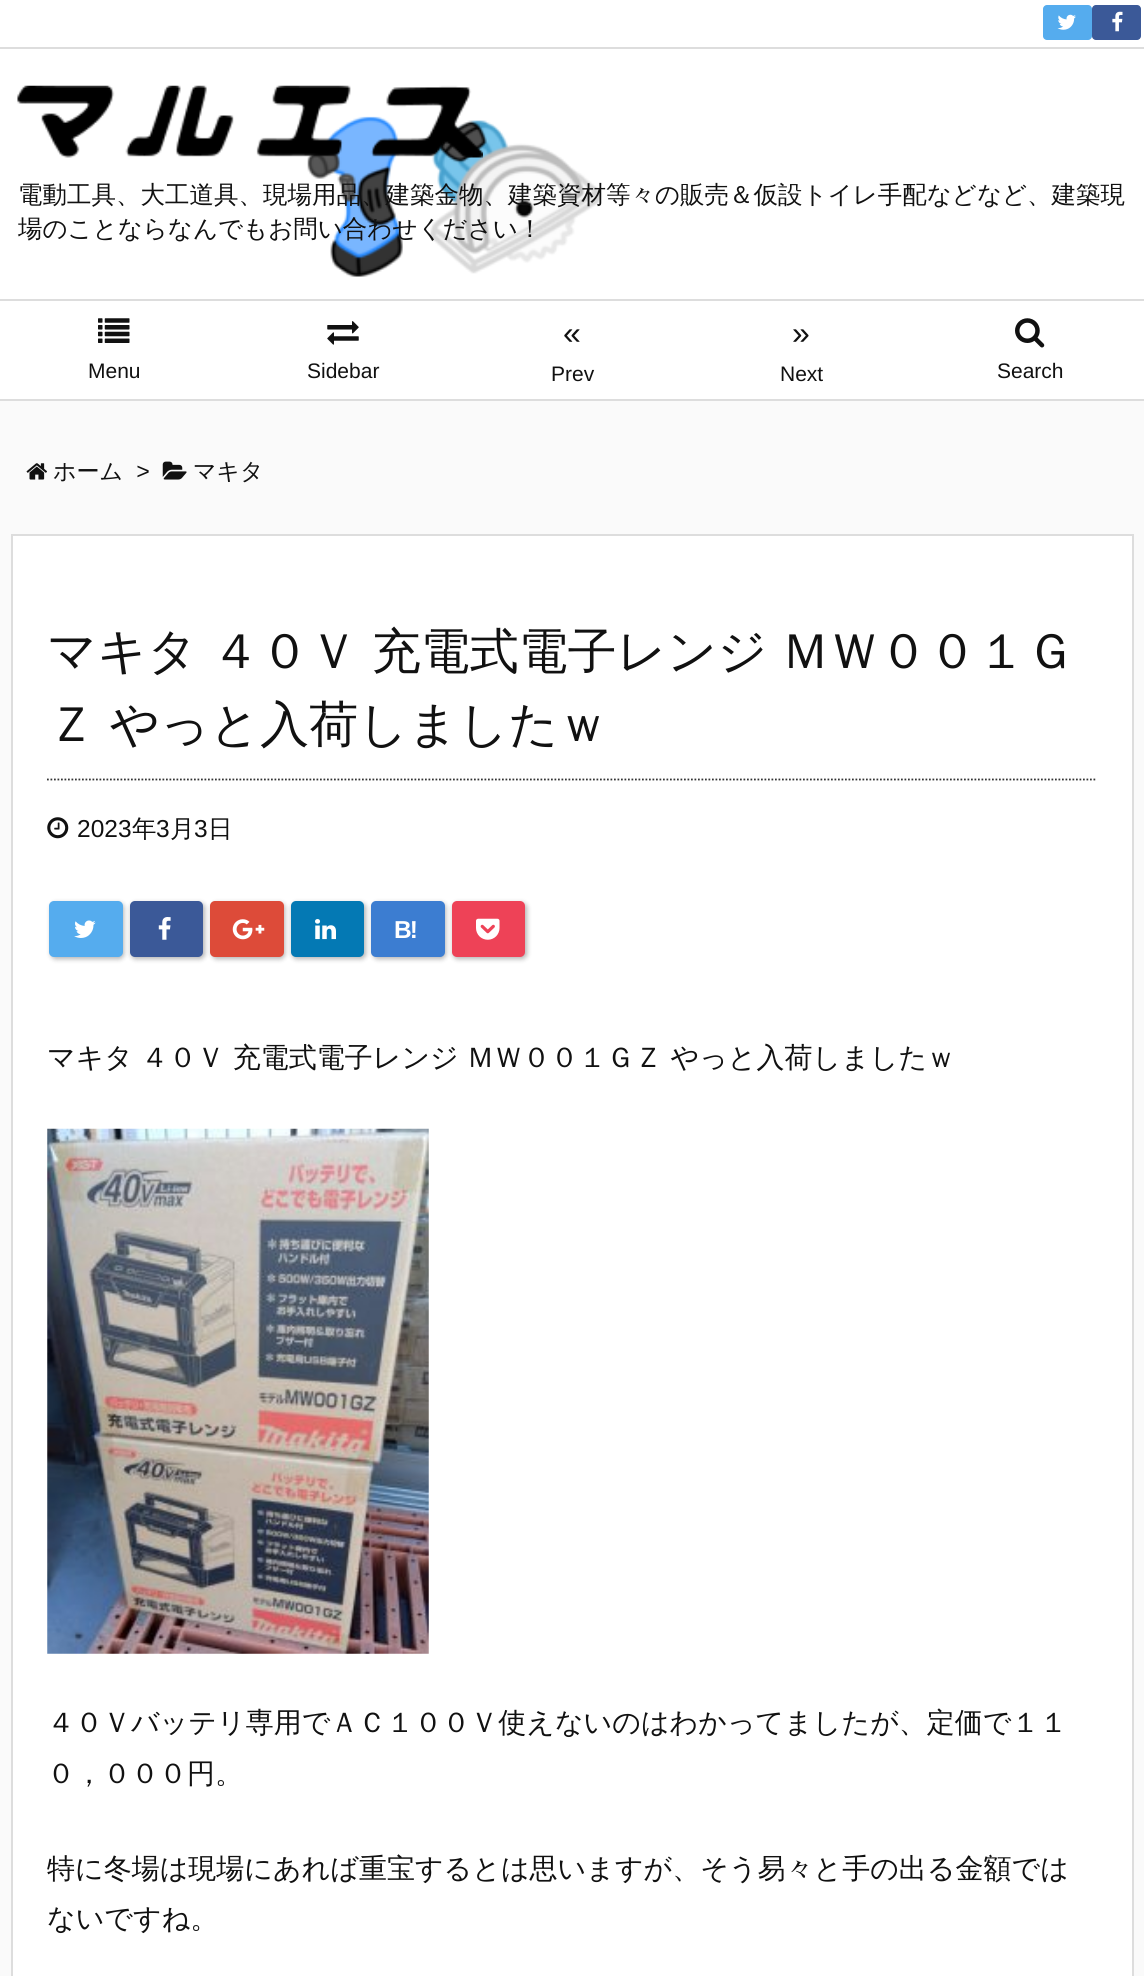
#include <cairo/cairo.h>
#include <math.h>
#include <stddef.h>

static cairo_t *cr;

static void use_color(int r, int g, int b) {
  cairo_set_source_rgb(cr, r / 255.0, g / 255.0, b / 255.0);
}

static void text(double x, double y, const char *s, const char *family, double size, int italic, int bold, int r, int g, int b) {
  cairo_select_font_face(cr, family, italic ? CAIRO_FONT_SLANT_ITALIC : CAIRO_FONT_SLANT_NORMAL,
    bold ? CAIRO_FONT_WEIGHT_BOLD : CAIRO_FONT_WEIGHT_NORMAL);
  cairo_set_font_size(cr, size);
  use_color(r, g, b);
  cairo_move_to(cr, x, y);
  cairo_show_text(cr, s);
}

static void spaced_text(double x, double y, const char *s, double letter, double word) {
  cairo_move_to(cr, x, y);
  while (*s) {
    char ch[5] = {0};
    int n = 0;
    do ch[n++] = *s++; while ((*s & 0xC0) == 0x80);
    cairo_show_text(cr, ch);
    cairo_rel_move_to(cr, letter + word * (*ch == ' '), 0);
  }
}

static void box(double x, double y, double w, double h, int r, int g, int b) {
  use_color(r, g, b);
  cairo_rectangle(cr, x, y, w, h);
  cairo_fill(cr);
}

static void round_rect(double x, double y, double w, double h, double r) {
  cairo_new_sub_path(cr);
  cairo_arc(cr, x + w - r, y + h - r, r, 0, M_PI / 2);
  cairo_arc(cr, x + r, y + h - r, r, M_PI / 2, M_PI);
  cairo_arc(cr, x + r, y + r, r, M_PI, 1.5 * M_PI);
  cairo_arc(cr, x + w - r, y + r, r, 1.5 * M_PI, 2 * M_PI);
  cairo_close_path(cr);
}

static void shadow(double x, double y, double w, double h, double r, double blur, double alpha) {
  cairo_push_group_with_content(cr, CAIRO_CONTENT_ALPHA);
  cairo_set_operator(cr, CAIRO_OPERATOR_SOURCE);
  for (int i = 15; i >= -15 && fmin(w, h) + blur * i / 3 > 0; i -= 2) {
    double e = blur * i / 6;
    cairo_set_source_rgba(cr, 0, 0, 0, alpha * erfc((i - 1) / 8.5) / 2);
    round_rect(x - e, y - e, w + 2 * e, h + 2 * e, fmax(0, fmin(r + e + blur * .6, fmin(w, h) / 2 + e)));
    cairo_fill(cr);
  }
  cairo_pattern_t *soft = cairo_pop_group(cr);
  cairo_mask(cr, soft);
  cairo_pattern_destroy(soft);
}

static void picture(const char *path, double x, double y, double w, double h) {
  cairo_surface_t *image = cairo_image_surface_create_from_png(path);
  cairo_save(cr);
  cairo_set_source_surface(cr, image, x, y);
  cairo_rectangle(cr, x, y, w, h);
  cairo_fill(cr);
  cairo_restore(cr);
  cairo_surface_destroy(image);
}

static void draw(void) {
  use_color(250, 250, 250);
  cairo_paint(cr);
  box(0, 0, 1144, 399, 255, 255, 255);
  picture("img_01.png", 307, 116, 295, 161);
  picture("img_02.png", 17, 85, 466, 73);
  box(0, 47, 1144, 2, 221, 221, 221);
  use_color(85, 172, 238);
  round_rect(1043, 5, 49, 35, 4);
  cairo_fill(cr);
  picture("img_03.png", 1057, 14, 19, 16);
  use_color(59, 89, 152);
  round_rect(1092, 5, 49, 35, 4);
  cairo_fill(cr);
  picture("img_04.png", 1112, 11, 11, 21);
  box(0, 299, 1144, 2, 221, 221, 221);
  box(0, 399, 1144, 2, 221, 221, 221);
  picture("img_05.png", 98, 318, 32, 25);
  picture("img_06.png", 327, 321, 32, 24);
  picture("img_07.png", 1015, 318, 30, 30);
  picture("img_08.png", 26, 463, 21, 17);
  picture("img_09.png", 162, 461, 25, 19);
  use_color(255, 255, 255);
  cairo_rectangle(cr, 12, 535, 1121, 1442);
  cairo_fill_preserve(cr);
  use_color(221, 221, 221);
  cairo_stroke(cr);
  cairo_new_path(cr);
  cairo_move_to(cr, 47, 779.5);
  cairo_line_to(cr, 1097, 779.5);
  use_color(51, 51, 51);
  cairo_set_line_width(cr, 1.8);
  cairo_set_dash(cr, (double[]){1.75, 1.75}, 2, 0);
  cairo_stroke(cr);
  picture("img_10.png", 47, 817, 22, 22);
  use_color(0, 0, 0);
  shadow(51, 903, 73, 56, 5, 2.5, 0.3);
  use_color(85, 172, 238);
  round_rect(49, 901, 74, 56, 5);
  cairo_fill(cr);
  picture("img_11.png", 74, 920, 22, 18);
  use_color(0, 0, 0);
  shadow(131, 903, 74, 56, 5, 2.5, 0.3);
  use_color(59, 89, 152);
  round_rect(130, 901, 73, 56, 5);
  cairo_fill(cr);
  picture("img_12.png", 158, 917, 13, 23);
  use_color(0, 0, 0);
  shadow(212, 903, 73, 56, 5, 2.5, 0.3);
  use_color(221, 75, 57);
  round_rect(210, 901, 74, 56, 5);
  cairo_fill(cr);
  picture("img_13.png", 232, 919, 33, 21);
  use_color(0, 0, 0);
  shadow(292, 903, 74, 56, 5, 2.5, 0.3);
  use_color(4, 121, 180);
  round_rect(291, 901, 73, 56, 5);
  cairo_fill(cr);
  picture("img_14.png", 315, 919, 21, 21);
  use_color(0, 0, 0);
  shadow(373, 903, 73, 56, 5, 2.5, 0.3);
  use_color(60, 125, 209);
  round_rect(371, 901, 74, 56, 5);
  cairo_fill(cr);
  use_color(0, 0, 0);
  shadow(453, 903, 74, 56, 5, 2.5, 0.3);
  use_color(238, 66, 87);
  round_rect(452, 901, 73, 56, 5);
  cairo_fill(cr);
  picture("img_15.png", 476, 918, 24, 22);
  picture("img_16.png", 47, 1128, 382, 526);
  text(18, 203, "電動工具、大工道具、現場用品、建築金物、建築資材等々の販売＆仮設トイレ手配などなど、建築現", "WenQuanYi Zen Hei Medium", 24.5, 0, 0, 17, 17, 17);
  text(18, 237, "場のことならなんでもお問い合わせください！", "WenQuanYi Zen Hei Medium", 24.5, 0, 0, 17, 17, 17);
  text(88, 378, "Menu", "Liberation Sans", 21, 0, 0, 17, 17, 17);
  text(307, 378, "Sidebar", "Liberation Sans", 21, 0, 0, 17, 17, 17);
  text(563, 344, "«", "Liberation Sans", 32, 0, 0, 17, 17, 17);
  text(551, 381, "Prev", "Liberation Sans", 21, 0, 0, 17, 17, 17);
  text(792, 344, "»", "Liberation Sans", 32, 0, 0, 17, 17, 17);
  text(780, 381, "Next", "Liberation Sans", 21, 0, 0, 17, 17, 17);
  text(997, 378, "Search", "Liberation Sans", 21, 0, 0, 17, 17, 17);
  text(53, 479, "ホーム", "WenQuanYi Zen Hei Medium", 23, 0, 0, 17, 17, 17);
  text(136, 479, ">", "Liberation Sans", 23, 1, 0, 17, 17, 17);
  text(193, 479, "マキタ", "WenQuanYi Zen Hei Medium", 23, 0, 0, 17, 17, 17);
  cairo_set_font_size(cr, 49);
  spaced_text(47, 668, "マキタ ４０Ｖ 充電式電子レンジ ＭＷ００１Ｇ", 0, -1);
  spaced_text(47, 741, "Ｚ やっと入荷しましたｗ", 0, -1);
  text(77, 837, "2023", "Liberation Sans", 24.5, 0, 0, 17, 17, 17);
  text(132, 837, "年", "WenQuanYi Zen Hei Medium", 24.5, 0, 0, 17, 17, 17);
  text(156, 837, "3", "Liberation Sans", 24.5, 0, 0, 17, 17, 17);
  text(170, 837, "月", "WenQuanYi Zen Hei Medium", 24.5, 0, 0, 17, 17, 17);
  text(194, 837, "3", "Liberation Sans", 24.5, 0, 0, 17, 17, 17);
  text(208, 837, "日", "WenQuanYi Zen Hei Medium", 24.5, 0, 0, 17, 17, 17);
  cairo_select_font_face(cr, "Liberation Sans", CAIRO_FONT_SLANT_NORMAL, CAIRO_FONT_WEIGHT_BOLD);
  use_color(255, 255, 255);
  spaced_text(394, 938, "B!", -2, 0);
  cairo_select_font_face(cr, "WenQuanYi Zen Hei Medium", CAIRO_FONT_SLANT_NORMAL, CAIRO_FONT_WEIGHT_NORMAL);
  cairo_set_font_size(cr, 28);
  use_color(17, 17, 17);
  spaced_text(47, 1067, "マキタ ４０Ｖ 充電式電子レンジ ＭＷ００１ＧＺ やっと入荷しましたｗ", 0, -0.5);
  text(47, 1732, "４０Ｖバッテリ専用でＡＣ１００Ｖ使えないのはわかってましたが、定価で１１", "WenQuanYi Zen Hei Medium", 28, 0, 0, 17, 17, 17);
  text(47, 1783, "０，０００円。", "WenQuanYi Zen Hei Medium", 28, 0, 0, 17, 17, 17);
  text(47, 1878, "特に冬場は現場にあれば重宝するとは思いますが、そう易々と手の出る金額では", "WenQuanYi Zen Hei Medium", 28, 0, 0, 17, 17, 17);
  text(47, 1928, "ないですね。", "WenQuanYi Zen Hei Medium", 28, 0, 0, 17, 17, 17);
}

int main(void) {
  cairo_surface_t *surface = cairo_image_surface_create(CAIRO_FORMAT_RGB24, 1144, 1976);
  cr = cairo_create(surface);
  cairo_font_options_t *options = cairo_font_options_create();
  cairo_font_options_set_hint_metrics(options, CAIRO_HINT_METRICS_OFF);
  cairo_font_options_set_hint_style(options, CAIRO_HINT_STYLE_NONE);
  cairo_set_font_options(cr, options);
  cairo_set_miter_limit(cr, 4);
  draw();
  cairo_surface_write_to_png(surface, "out.png");
  cairo_font_options_destroy(options);
  cairo_destroy(cr);
  cairo_surface_destroy(surface);
  return 0;
}
